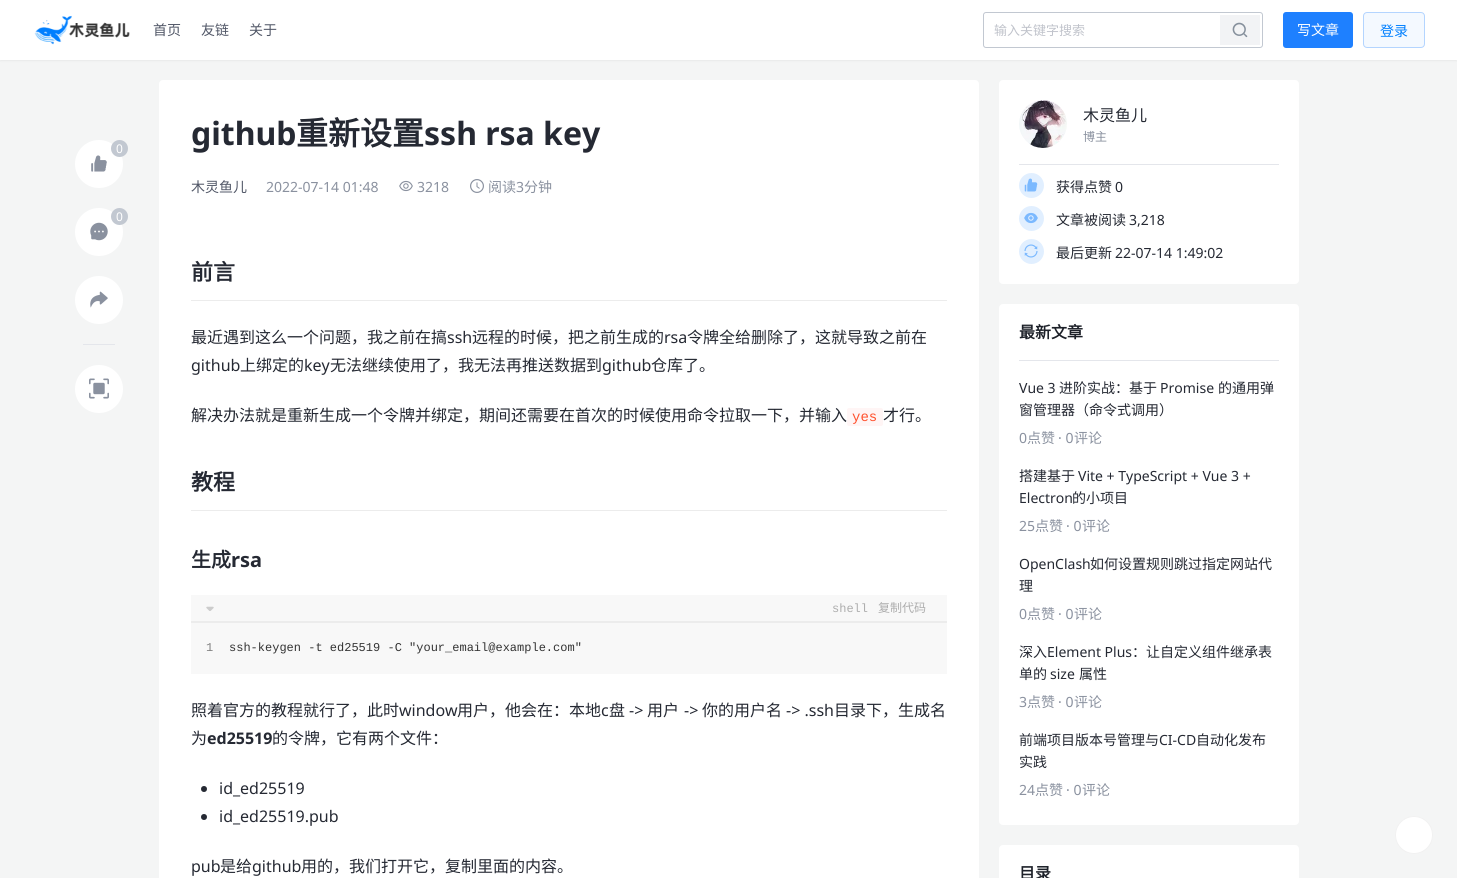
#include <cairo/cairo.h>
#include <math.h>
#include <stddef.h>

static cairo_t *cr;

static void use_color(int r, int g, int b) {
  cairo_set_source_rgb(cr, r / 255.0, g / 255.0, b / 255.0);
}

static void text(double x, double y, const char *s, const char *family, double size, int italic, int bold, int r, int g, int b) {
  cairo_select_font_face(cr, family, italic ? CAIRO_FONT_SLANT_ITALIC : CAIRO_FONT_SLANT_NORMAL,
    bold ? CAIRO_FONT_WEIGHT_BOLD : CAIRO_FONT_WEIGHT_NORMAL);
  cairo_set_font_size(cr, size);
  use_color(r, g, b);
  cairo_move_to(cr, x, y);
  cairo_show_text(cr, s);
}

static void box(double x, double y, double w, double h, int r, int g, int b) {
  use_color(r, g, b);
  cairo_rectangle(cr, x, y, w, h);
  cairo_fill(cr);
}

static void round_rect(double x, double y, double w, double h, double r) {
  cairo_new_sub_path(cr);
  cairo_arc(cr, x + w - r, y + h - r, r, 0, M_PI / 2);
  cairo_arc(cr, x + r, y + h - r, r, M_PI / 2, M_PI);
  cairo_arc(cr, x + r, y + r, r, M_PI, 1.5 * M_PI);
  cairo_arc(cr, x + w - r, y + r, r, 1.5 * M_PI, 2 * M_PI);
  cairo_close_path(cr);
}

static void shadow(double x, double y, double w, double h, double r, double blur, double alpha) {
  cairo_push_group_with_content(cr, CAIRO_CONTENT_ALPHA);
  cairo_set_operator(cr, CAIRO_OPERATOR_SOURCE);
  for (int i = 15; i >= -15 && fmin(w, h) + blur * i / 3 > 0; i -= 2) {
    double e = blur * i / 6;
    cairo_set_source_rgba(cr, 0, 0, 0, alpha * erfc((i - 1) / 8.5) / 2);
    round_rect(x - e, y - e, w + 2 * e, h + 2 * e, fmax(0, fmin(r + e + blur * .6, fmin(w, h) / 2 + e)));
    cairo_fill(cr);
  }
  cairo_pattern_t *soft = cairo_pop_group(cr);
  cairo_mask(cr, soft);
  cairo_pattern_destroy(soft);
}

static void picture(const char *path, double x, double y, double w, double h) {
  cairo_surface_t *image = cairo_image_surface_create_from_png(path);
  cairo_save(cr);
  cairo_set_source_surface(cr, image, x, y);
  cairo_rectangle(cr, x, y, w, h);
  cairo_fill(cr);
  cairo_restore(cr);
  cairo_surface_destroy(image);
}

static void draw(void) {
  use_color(244, 245, 245);
  cairo_paint(cr);
  use_color(0, 0, 0);
  shadow(0, 1, 1457, 60, 0, 1, 0.05);
  box(0, 0, 1457, 60, 255, 255, 255);
  picture("img_01.png", 34, 15, 96, 30);
  round_rect(983.5, 12.5, 279, 35, 2.5);
  use_color(194, 200, 209);
  cairo_set_line_width(cr, 1);
  cairo_stroke(cr);
  box(1220, 15, 40, 30, 242, 243, 245);
  picture("img_02.png", 1232, 22, 16, 16);
  use_color(30, 128, 255);
  round_rect(1283, 12, 70, 36, 3);
  cairo_fill(cr);
  use_color(244, 249, 255);
  round_rect(1363, 12, 62, 36, 4);
  cairo_fill(cr);
  round_rect(1363.5, 12.5, 61, 35, 3.5);
  cairo_set_source_rgba(cr, 0.118, 0.502, 1, 0.3);
  cairo_stroke(cr);
  use_color(255, 255, 255);
  cairo_arc(cr, 99, 164, 24, 0, 2 * M_PI);
  cairo_fill(cr);
  use_color(194, 200, 209);
  cairo_arc(cr, 119.5, 148.5, 8.5, 0, 2 * M_PI);
  cairo_fill(cr);
  picture("img_03.png", 91, 155, 16, 17);
  use_color(255, 255, 255);
  cairo_arc(cr, 99, 232, 24, 0, 2 * M_PI);
  cairo_fill(cr);
  use_color(194, 200, 209);
  cairo_arc(cr, 119.5, 216.5, 8.5, 0, 2 * M_PI);
  cairo_fill(cr);
  picture("img_04.png", 90, 222, 18, 19);
  use_color(255, 255, 255);
  cairo_arc(cr, 99, 300, 24, 0, 2 * M_PI);
  cairo_fill(cr);
  picture("img_05.png", 90, 291, 18, 17);
  box(83, 344, 32, 1, 228, 230, 235);
  use_color(255, 255, 255);
  cairo_arc(cr, 99, 389, 24, 0, 2 * M_PI);
  cairo_fill(cr);
  picture("img_06.png", 89, 378, 20, 21);
  round_rect(159, 80, 820, 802, 4);
  cairo_fill(cr);
  picture("img_07.png", 399, 180, 14, 12);
  picture("img_08.png", 470, 179, 14, 14);
  box(191, 300, 756, 1, 236, 236, 236);
  use_color(255, 245, 245);
  round_rect(847, 408, 36, 18, 2);
  cairo_fill(cr);
  box(191, 510, 756, 1, 236, 236, 236);
  box(191, 595, 756, 79, 248, 248, 248);
  picture("img_09.png", 206, 606, 8, 5);
  box(191, 621, 756, 2, 236, 236, 236);
  use_color(37, 41, 51);
  cairo_arc(cr, 204, 789, 3, 0, 2 * M_PI);
  cairo_fill(cr);
  cairo_arc(cr, 204, 817, 3, 0, 2 * M_PI);
  cairo_fill(cr);
  use_color(255, 255, 255);
  round_rect(999, 80, 300, 204, 4);
  cairo_fill(cr);
  box(1019, 164, 260, 1, 228, 230, 235);
  picture("img_10.png", 1019, 100, 48, 48);
  use_color(225, 239, 255);
  cairo_arc(cr, 1031.5, 185.5, 12.5, 0, 2 * M_PI);
  cairo_fill(cr);
  picture("img_11.png", 1024, 178, 14, 14);
  cairo_arc(cr, 1031.5, 218.5, 12.5, 0, 2 * M_PI);
  cairo_fill(cr);
  picture("img_12.png", 1024, 212, 14, 12);
  cairo_arc(cr, 1031.5, 251.5, 12.5, 0, 2 * M_PI);
  cairo_fill(cr);
  picture("img_13.png", 1024, 244, 14, 14);
  use_color(255, 255, 255);
  round_rect(999, 304, 300, 521, 4);
  cairo_fill(cr);
  box(1019, 360, 260, 1, 228, 230, 235);
  use_color(255, 255, 255);
  round_rect(999, 845, 300, 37, 4);
  cairo_fill(cr);
  cairo_arc(cr, 1414, 835, 18.5, 0, 2 * M_PI);
  cairo_fill_preserve(cr);
  use_color(241, 241, 241);
  cairo_stroke(cr);
  text(153, 35, "首页", "Noto Sans CJK SC", 14, 0, 0, 81, 87, 103);
  text(201, 35, "友链", "Noto Sans CJK SC", 14, 0, 0, 81, 87, 103);
  text(249, 35, "关于", "Noto Sans CJK SC", 14, 0, 0, 81, 87, 103);
  text(994, 35, "输入关键字搜索", "Noto Sans CJK SC", 13, 0, 0, 192, 195, 203);
  text(1297, 35, "写文章", "Noto Sans CJK SC", 14, 0, 0, 255, 255, 255);
  text(1380, 36, "登录", "Noto Sans CJK SC", 14, 0, 0, 0, 127, 255);
  text(116, 153, "0", "Noto Sans", 12, 0, 0, 255, 255, 255);
  text(116, 221, "0", "Noto Sans", 12, 0, 0, 255, 255, 255);
  text(191, 145, "github", "Noto Sans", 32, 0, 1, 37, 41, 51);
  text(296, 145, "重新设置", "Noto Sans CJK SC", 32, 0, 1, 37, 41, 51);
  text(424, 145, "ssh rsa key", "Noto Sans", 32, 0, 1, 37, 41, 51);
  text(191, 192, "木灵鱼儿", "Noto Sans CJK SC", 14, 0, 0, 81, 87, 103);
  text(266, 192, "2022-07-14 01:48", "Noto Sans", 14, 0, 0, 138, 145, 159);
  text(417, 192, "3218", "Noto Sans", 14, 0, 0, 138, 145, 159);
  text(488, 192, "阅读", "Noto Sans CJK SC", 14, 0, 0, 138, 145, 159);
  text(516, 192, "3", "Noto Sans", 14, 0, 0, 138, 145, 159);
  text(524, 192, "分钟", "Noto Sans CJK SC", 14, 0, 0, 138, 145, 159);
  text(191, 280, "前言", "Noto Sans CJK SC", 22, 0, 1, 37, 41, 51);
  text(191, 343, "最近遇到这么一个问题，我之前在搞", "Noto Sans CJK SC", 16, 0, 0, 37, 41, 51);
  text(447, 343, "ssh", "Noto Sans", 16, 0, 0, 37, 41, 51);
  text(472, 343, "远程的时候，把之前生成的", "Noto Sans CJK SC", 16, 0, 0, 37, 41, 51);
  text(664, 343, "rsa", "Noto Sans", 16, 0, 0, 37, 41, 51);
  text(687, 343, "令牌全给删除了，这就导致之前在", "Noto Sans CJK SC", 16, 0, 0, 37, 41, 51);
  text(191, 371, "github", "Noto Sans", 16, 0, 0, 37, 41, 51);
  text(240, 371, "上绑定的", "Noto Sans CJK SC", 16, 0, 0, 37, 41, 51);
  text(304, 371, "key", "Noto Sans", 16, 0, 0, 37, 41, 51);
  text(330, 371, "无法继续使用了，我无法再推送数据到", "Noto Sans CJK SC", 16, 0, 0, 37, 41, 51);
  text(602, 371, "github", "Noto Sans", 16, 0, 0, 37, 41, 51);
  text(651, 371, "仓库了。", "Noto Sans CJK SC", 16, 0, 0, 37, 41, 51);
  text(191, 421, "解决办法就是重新生成一个令牌并绑定，期间还需要在首次的时候使用命令拉取一下，并输入", "Noto Sans CJK SC", 16, 0, 0, 37, 41, 51);
  text(852, 421, "yes", "Liberation Mono", 14, 0, 0, 255, 80, 44);
  text(883, 421, "才行。", "Noto Sans CJK SC", 16, 0, 0, 37, 41, 51);
  text(191, 490, "教程", "Noto Sans CJK SC", 22, 0, 1, 37, 41, 51);
  text(191, 567, "生成", "Noto Sans CJK SC", 20, 0, 1, 37, 41, 51);
  text(231, 567, "rsa", "Noto Sans", 20, 0, 1, 37, 41, 51);
  text(832, 612, "shell", "Liberation Mono", 12, 0, 0, 173, 173, 173);
  text(878, 612, "复制代码", "Noto Sans CJK SC", 12, 0, 0, 173, 173, 173);
  text(206, 651, "1", "Liberation Mono", 12, 0, 0, 128, 128, 128);
  text(229, 651, "ssh-keygen -t ed25519 -C \"your_email@example.com\"", "Liberation Mono", 12, 0, 0, 51, 51, 51);
  text(191, 716, "照着官方的教程就行了，此时", "Noto Sans CJK SC", 16, 0, 0, 37, 41, 51);
  text(399, 716, "window", "Noto Sans", 16, 0, 0, 37, 41, 51);
  text(457, 716, "用户，他会在：本地", "Noto Sans CJK SC", 16, 0, 0, 37, 41, 51);
  text(601, 716, "c", "Noto Sans", 16, 0, 0, 37, 41, 51);
  text(609, 716, "盘", "Noto Sans CJK SC", 16, 0, 0, 37, 41, 51);
  text(629, 716, "->", "Noto Sans", 16, 0, 0, 37, 41, 51);
  text(647, 716, "用户", "Noto Sans CJK SC", 16, 0, 0, 37, 41, 51);
  text(684, 716, "->", "Noto Sans", 16, 0, 0, 37, 41, 51);
  text(702, 716, "你的用户名", "Noto Sans CJK SC", 16, 0, 0, 37, 41, 51);
  text(786, 716, "-> .ssh", "Noto Sans", 16, 0, 0, 37, 41, 51);
  text(834, 716, "目录下，生成名", "Noto Sans CJK SC", 16, 0, 0, 37, 41, 51);
  text(191, 744, "为", "Noto Sans CJK SC", 16, 0, 0, 37, 41, 51);
  text(207, 744, "ed25519", "Noto Sans", 16, 0, 1, 37, 41, 51);
  text(272, 744, "的令牌，它有两个文件：", "Noto Sans CJK SC", 16, 0, 0, 37, 41, 51);
  text(219, 794, "id_ed25519", "Noto Sans", 16, 0, 0, 37, 41, 51);
  text(219, 822, "id_ed25519.pub", "Noto Sans", 16, 0, 0, 37, 41, 51);
  text(191, 872, "pub", "Noto Sans", 16, 0, 0, 37, 41, 51);
  text(220, 872, "是给", "Noto Sans CJK SC", 16, 0, 0, 37, 41, 51);
  text(252, 872, "github", "Noto Sans", 16, 0, 0, 37, 41, 51);
  text(301, 872, "用的，我们打开它，复制里面的内容。", "Noto Sans CJK SC", 16, 0, 0, 37, 41, 51);
  text(1083, 121, "木灵鱼儿", "Noto Sans CJK SC", 16, 0, 0, 37, 41, 51);
  text(1083, 141, "博主", "Noto Sans CJK SC", 12, 0, 0, 138, 145, 159);
  text(1056, 192, "获得点赞", "Noto Sans CJK SC", 14, 0, 0, 37, 41, 51);
  text(1115, 192, "0", "Noto Sans", 14, 0, 0, 37, 41, 51);
  text(1056, 225, "文章被阅读", "Noto Sans CJK SC", 14, 0, 0, 37, 41, 51);
  text(1129, 225, "3,218", "Noto Sans", 14, 0, 0, 37, 41, 51);
  text(1056, 258, "最后更新", "Noto Sans CJK SC", 14, 0, 0, 37, 41, 51);
  text(1115, 258, "22-07-14 1:49:02", "Noto Sans", 14, 0, 0, 37, 41, 51);
  text(1019, 338, "最新文章", "Noto Sans CJK SC", 16, 0, 1, 29, 33, 41);
  text(1019, 393, "Vue 3", "Noto Sans", 14, 0, 0, 37, 41, 51);
  text(1059, 393, "进阶实战：基于", "Noto Sans CJK SC", 14, 0, 0, 37, 41, 51);
  text(1160, 393, "Promise", "Noto Sans", 14, 0, 0, 37, 41, 51);
  text(1218, 393, "的通用弹", "Noto Sans CJK SC", 14, 0, 0, 37, 41, 51);
  text(1019, 415, "窗管理器（命令式调用）", "Noto Sans CJK SC", 14, 0, 0, 37, 41, 51);
  text(1019, 443, "0", "Noto Sans", 14, 0, 0, 138, 145, 159);
  text(1027, 443, "点赞", "Noto Sans CJK SC", 14, 0, 0, 138, 145, 159);
  text(1058, 443, "· 0", "Noto Sans", 14, 0, 0, 138, 145, 159);
  text(1074, 443, "评论", "Noto Sans CJK SC", 14, 0, 0, 138, 145, 159);
  text(1019, 481, "搭建基于", "Noto Sans CJK SC", 14, 0, 0, 37, 41, 51);
  text(1078, 481, "Vite + TypeScript + Vue 3 +", "Noto Sans", 14, 0, 0, 37, 41, 51);
  text(1019, 503, "Electron", "Noto Sans", 14, 0, 0, 37, 41, 51);
  text(1072, 503, "的小项目", "Noto Sans CJK SC", 14, 0, 0, 37, 41, 51);
  text(1019, 531, "25", "Noto Sans", 14, 0, 0, 138, 145, 159);
  text(1035, 531, "点赞", "Noto Sans CJK SC", 14, 0, 0, 138, 145, 159);
  text(1066, 531, "· 0", "Noto Sans", 14, 0, 0, 138, 145, 159);
  text(1082, 531, "评论", "Noto Sans CJK SC", 14, 0, 0, 138, 145, 159);
  text(1019, 569, "OpenClash", "Noto Sans", 14, 0, 0, 37, 41, 51);
  text(1090, 569, "如何设置规则跳过指定网站代", "Noto Sans CJK SC", 14, 0, 0, 37, 41, 51);
  text(1019, 591, "理", "Noto Sans CJK SC", 14, 0, 0, 37, 41, 51);
  text(1019, 619, "0", "Noto Sans", 14, 0, 0, 138, 145, 159);
  text(1027, 619, "点赞", "Noto Sans CJK SC", 14, 0, 0, 138, 145, 159);
  text(1058, 619, "· 0", "Noto Sans", 14, 0, 0, 138, 145, 159);
  text(1074, 619, "评论", "Noto Sans CJK SC", 14, 0, 0, 138, 145, 159);
  text(1019, 657, "深入", "Noto Sans CJK SC", 14, 0, 0, 37, 41, 51);
  text(1047, 657, "Element Plus", "Noto Sans", 14, 0, 0, 37, 41, 51);
  text(1132, 657, "：让自定义组件继承表", "Noto Sans CJK SC", 14, 0, 0, 37, 41, 51);
  text(1019, 679, "单的", "Noto Sans CJK SC", 14, 0, 0, 37, 41, 51);
  text(1050, 679, "size", "Noto Sans", 14, 0, 0, 37, 41, 51);
  text(1079, 679, "属性", "Noto Sans CJK SC", 14, 0, 0, 37, 41, 51);
  text(1019, 707, "3", "Noto Sans", 14, 0, 0, 138, 145, 159);
  text(1027, 707, "点赞", "Noto Sans CJK SC", 14, 0, 0, 138, 145, 159);
  text(1058, 707, "· 0", "Noto Sans", 14, 0, 0, 138, 145, 159);
  text(1074, 707, "评论", "Noto Sans CJK SC", 14, 0, 0, 138, 145, 159);
  text(1019, 745, "前端项目版本号管理与", "Noto Sans CJK SC", 14, 0, 0, 37, 41, 51);
  text(1159, 745, "CI-CD", "Noto Sans", 14, 0, 0, 37, 41, 51);
  text(1196, 745, "自动化发布", "Noto Sans CJK SC", 14, 0, 0, 37, 41, 51);
  text(1019, 767, "实践", "Noto Sans CJK SC", 14, 0, 0, 37, 41, 51);
  text(1019, 795, "24", "Noto Sans", 14, 0, 0, 138, 145, 159);
  text(1035, 795, "点赞", "Noto Sans CJK SC", 14, 0, 0, 138, 145, 159);
  text(1066, 795, "· 0", "Noto Sans", 14, 0, 0, 138, 145, 159);
  text(1082, 795, "评论", "Noto Sans CJK SC", 14, 0, 0, 138, 145, 159);
  text(1019, 879, "目录", "Noto Sans CJK SC", 16, 0, 1, 29, 33, 41);
}

int main(void) {
  cairo_surface_t *surface = cairo_image_surface_create(CAIRO_FORMAT_RGB24, 1457, 878);
  cr = cairo_create(surface);
  cairo_font_options_t *options = cairo_font_options_create();
  cairo_font_options_set_hint_metrics(options, CAIRO_HINT_METRICS_OFF);
  cairo_font_options_set_hint_style(options, CAIRO_HINT_STYLE_NONE);
  cairo_set_font_options(cr, options);
  cairo_set_miter_limit(cr, 4);
  draw();
  cairo_surface_write_to_png(surface, "out.png");
  cairo_font_options_destroy(options);
  cairo_destroy(cr);
  cairo_surface_destroy(surface);
  return 0;
}
